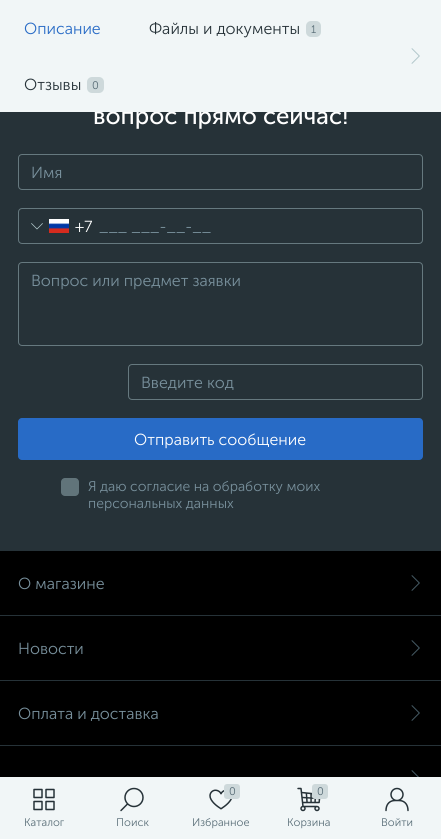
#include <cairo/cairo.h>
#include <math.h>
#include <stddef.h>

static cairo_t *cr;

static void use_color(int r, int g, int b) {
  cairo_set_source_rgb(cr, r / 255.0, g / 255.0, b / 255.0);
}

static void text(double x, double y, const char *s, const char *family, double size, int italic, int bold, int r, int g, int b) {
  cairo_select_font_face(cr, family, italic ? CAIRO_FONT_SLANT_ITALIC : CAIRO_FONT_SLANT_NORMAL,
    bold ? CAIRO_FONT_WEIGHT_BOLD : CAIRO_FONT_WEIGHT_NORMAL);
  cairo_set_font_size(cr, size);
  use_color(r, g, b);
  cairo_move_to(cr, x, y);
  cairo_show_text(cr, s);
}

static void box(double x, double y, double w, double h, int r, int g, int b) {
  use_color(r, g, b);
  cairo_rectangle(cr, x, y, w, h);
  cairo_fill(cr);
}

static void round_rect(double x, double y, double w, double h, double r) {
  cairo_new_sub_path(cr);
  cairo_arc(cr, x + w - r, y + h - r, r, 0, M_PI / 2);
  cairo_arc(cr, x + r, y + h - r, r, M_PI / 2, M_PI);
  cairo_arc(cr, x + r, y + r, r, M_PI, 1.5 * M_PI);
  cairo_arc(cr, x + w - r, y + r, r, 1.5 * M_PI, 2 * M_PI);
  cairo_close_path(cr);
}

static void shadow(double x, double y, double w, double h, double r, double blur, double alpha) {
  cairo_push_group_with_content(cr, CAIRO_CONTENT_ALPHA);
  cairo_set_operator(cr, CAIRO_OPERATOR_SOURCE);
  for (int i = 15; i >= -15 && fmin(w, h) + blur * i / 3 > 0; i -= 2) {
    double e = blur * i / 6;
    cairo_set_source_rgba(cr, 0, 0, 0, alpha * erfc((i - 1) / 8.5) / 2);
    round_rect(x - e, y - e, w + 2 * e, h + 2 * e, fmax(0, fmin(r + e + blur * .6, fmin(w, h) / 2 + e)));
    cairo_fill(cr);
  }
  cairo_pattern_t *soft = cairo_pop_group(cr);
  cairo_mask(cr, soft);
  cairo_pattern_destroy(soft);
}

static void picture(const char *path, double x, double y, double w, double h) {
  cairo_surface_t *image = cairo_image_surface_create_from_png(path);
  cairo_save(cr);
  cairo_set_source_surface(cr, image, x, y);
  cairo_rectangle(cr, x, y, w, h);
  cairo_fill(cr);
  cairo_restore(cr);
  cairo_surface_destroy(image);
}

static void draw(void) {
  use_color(38, 50, 56);
  cairo_paint(cr);
  round_rect(18.5, 154.5, 404, 35, 3.5);
  use_color(102, 121, 127);
  cairo_set_line_width(cr, 1);
  cairo_stroke(cr);
  use_color(38, 50, 56);
  shadow(0, 0, 441, 112, 0, 16, 0.16);
  round_rect(18.5, 208.5, 404, 35, 3.5);
  use_color(102, 121, 127);
  cairo_stroke(cr);
  picture("img_02.png", 31, 223, 12, 7);
  picture("img_03.png", 49, 219, 20, 14);
  round_rect(18.5, 262.5, 404, 83, 3.5);
  cairo_stroke(cr);
  round_rect(128.5, 364.5, 294, 35, 3.5);
  cairo_stroke(cr);
  use_color(40, 107, 198);
  round_rect(18, 418, 405, 42, 4);
  cairo_fill(cr);
  use_color(97, 116, 122);
  round_rect(61, 478, 18, 18, 4);
  cairo_fill(cr);
  box(0, 551, 441, 226, 0, 0, 0);
  box(0, 615, 441, 1, 38, 50, 56);
  picture("img_04.png", 411, 575, 9, 16);
  box(0, 680, 441, 1, 38, 50, 56);
  picture("img_04.png", 411, 640, 9, 16);
  box(0, 745, 441, 1, 38, 50, 56);
  picture("img_04.png", 411, 705, 9, 16);
  picture("img_05.png", 411, 770, 8, 7);
  box(0, 777, 441, 62, 241, 246, 247);
  picture("img_06.png", 33, 788, 22, 23);
  picture("img_07.png", 120, 787, 24, 25);
  picture("img_08.png", 209, 789, 23, 21);
  use_color(206, 217, 219);
  round_rect(224, 784, 16, 15, 3);
  cairo_fill(cr);
  picture("img_09.png", 297, 787, 24, 25);
  round_rect(312, 784, 16, 15, 3);
  cairo_fill(cr);
  picture("img_10.png", 385, 787, 24, 25);
  text(93, 124, "вопрос прямо сейчас!", "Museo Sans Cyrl", 24, 0, 0, 255, 255, 255);
  box(0, 0, 441, 112, 241, 246, 247);
  picture("img_01.png", 411, 48, 9, 16);
  use_color(206, 217, 219);
  round_rect(87, 77, 17, 16, 5);
  cairo_fill(cr);
  text(92, 89, "0", "Museo Sans Cyrl Light", 11, 0, 0, 86, 107, 117);
  text(24, 90, "Отзывы", "Museo Sans Cyrl Light", 16, 0, 0, 38, 50, 56);
  use_color(206, 217, 219);
  round_rect(306, 21, 15, 16, 5);
  cairo_fill(cr);
  text(311, 33, "1", "Museo Sans Cyrl Light", 11, 0, 0, 86, 107, 117);
  text(149, 34, "Файлы и документы", "Museo Sans Cyrl Light", 16, 0, 0, 38, 50, 56);
  text(24, 34, "Описание", "Museo Sans Cyrl Light", 16, 0, 0, 40, 107, 198);
  text(31, 178, "Имя", "Museo Sans Cyrl Light", 16, 0, 0, 120, 144, 156);
  text(75, 232, "+7", "Museo Sans Cyrl Light", 16, 0, 0, 255, 255, 255);
  text(99, 232, "___ ___-__-__", "Museo Sans Cyrl Light", 16, 0, 0, 120, 144, 156);
  text(31, 286, "Вопрос или предмет заявки", "Museo Sans Cyrl Light", 16, 0, 0, 120, 144, 156);
  text(141, 388, "Введите код", "Museo Sans Cyrl Light", 16, 0, 0, 120, 144, 156);
  text(134, 445, "Отправить сообщение", "Museo Sans Cyrl Light", 16, 0, 0, 255, 255, 255);
  text(88, 491, "Я даю согласие на обработку моих", "Museo Sans Cyrl Light", 14, 0, 0, 120, 144, 156);
  text(88, 508, "персональных данных", "Museo Sans Cyrl Light", 14, 0, 0, 120, 144, 156);
  text(18, 589, "О магазине", "Museo Sans Cyrl Light", 16, 0, 0, 120, 144, 156);
  text(18, 654, "Новости", "Museo Sans Cyrl Light", 16, 0, 0, 120, 144, 156);
  text(18, 719, "Оплата и доставка", "Museo Sans Cyrl Light", 16, 0, 0, 120, 144, 156);
  text(24, 826, "Каталог", "Museo Sans Cyrl Light", 11, 0, 0, 86, 107, 117);
  text(116, 826, "Поиск", "Museo Sans Cyrl Light", 11, 0, 0, 86, 107, 117);
  text(229, 795, "0", "Museo Sans Cyrl Light", 11, 0, 0, 86, 107, 117);
  text(192, 826, "Избранное", "Museo Sans Cyrl Light", 11, 0, 0, 86, 107, 117);
  text(317, 795, "0", "Museo Sans Cyrl Light", 11, 0, 0, 86, 107, 117);
  text(287, 826, "Корзина", "Museo Sans Cyrl Light", 11, 0, 0, 86, 107, 117);
  text(381, 826, "Войти", "Museo Sans Cyrl Light", 11, 0, 0, 86, 107, 117);
}

int main(void) {
  cairo_surface_t *surface = cairo_image_surface_create(CAIRO_FORMAT_RGB24, 441, 839);
  cr = cairo_create(surface);
  cairo_font_options_t *options = cairo_font_options_create();
  cairo_font_options_set_hint_metrics(options, CAIRO_HINT_METRICS_OFF);
  cairo_font_options_set_hint_style(options, CAIRO_HINT_STYLE_NONE);
  cairo_set_font_options(cr, options);
  cairo_set_miter_limit(cr, 4);
  draw();
  cairo_surface_write_to_png(surface, "out.png");
  cairo_font_options_destroy(options);
  cairo_destroy(cr);
  cairo_surface_destroy(surface);
  return 0;
}
